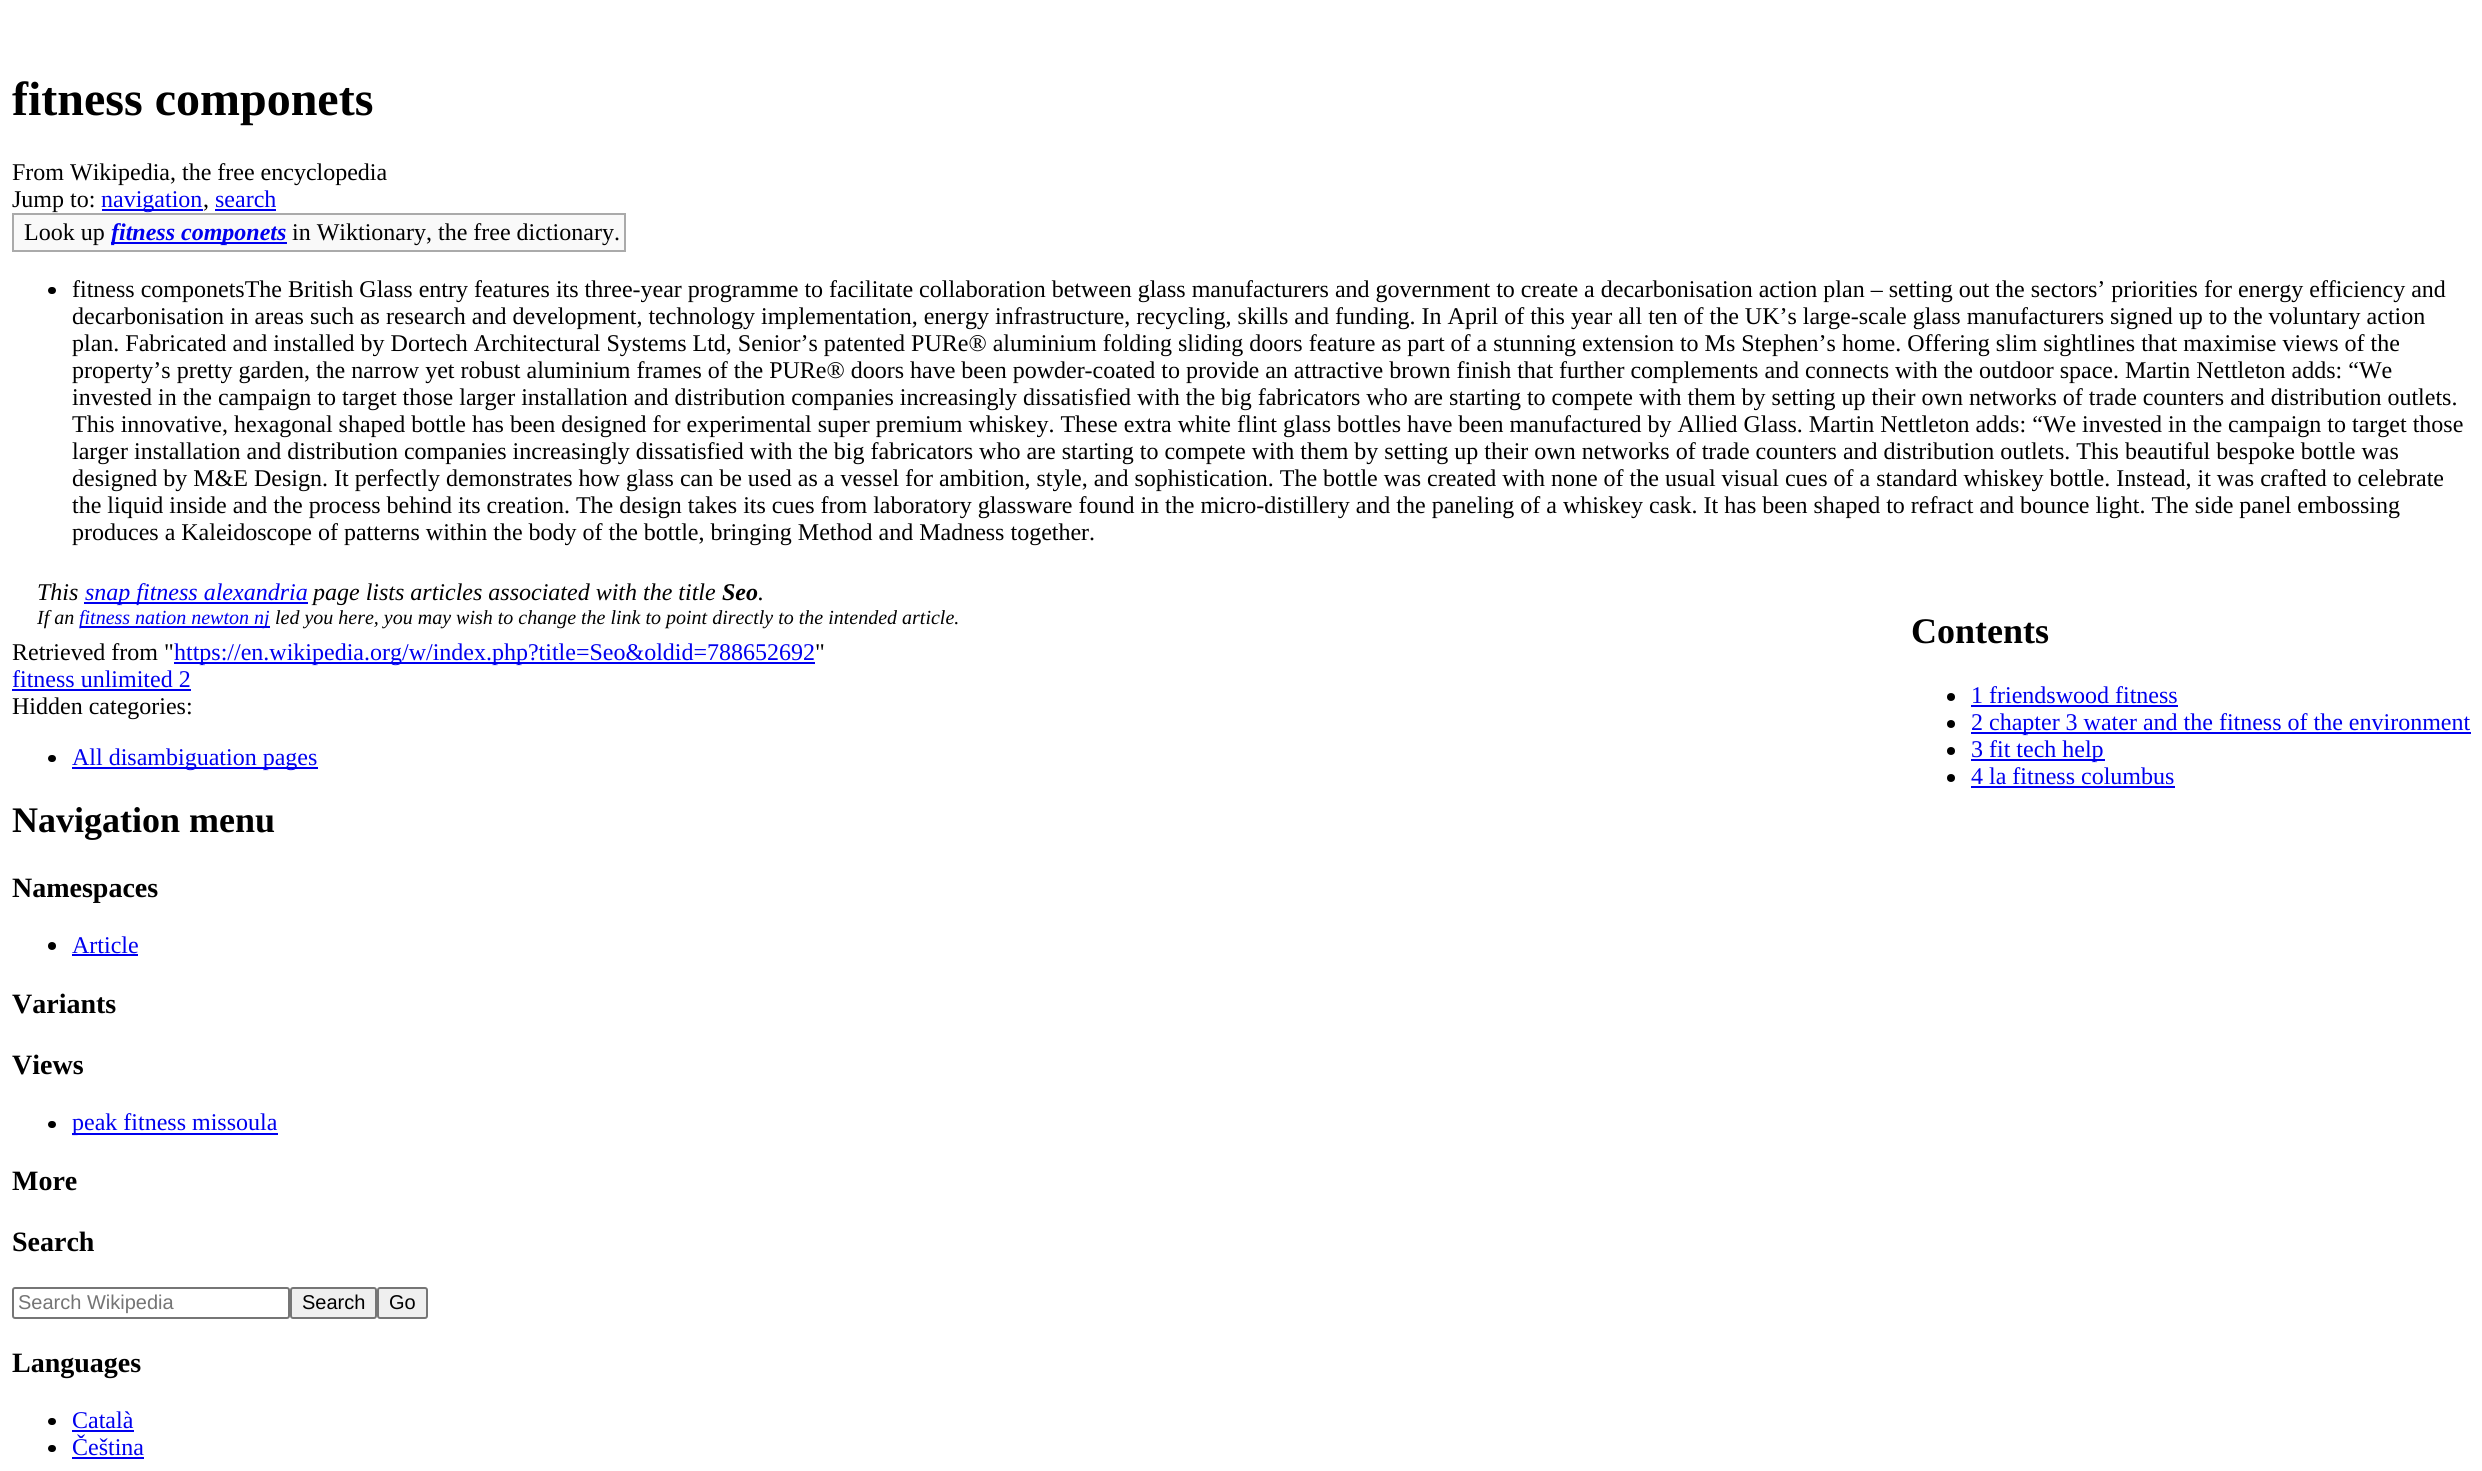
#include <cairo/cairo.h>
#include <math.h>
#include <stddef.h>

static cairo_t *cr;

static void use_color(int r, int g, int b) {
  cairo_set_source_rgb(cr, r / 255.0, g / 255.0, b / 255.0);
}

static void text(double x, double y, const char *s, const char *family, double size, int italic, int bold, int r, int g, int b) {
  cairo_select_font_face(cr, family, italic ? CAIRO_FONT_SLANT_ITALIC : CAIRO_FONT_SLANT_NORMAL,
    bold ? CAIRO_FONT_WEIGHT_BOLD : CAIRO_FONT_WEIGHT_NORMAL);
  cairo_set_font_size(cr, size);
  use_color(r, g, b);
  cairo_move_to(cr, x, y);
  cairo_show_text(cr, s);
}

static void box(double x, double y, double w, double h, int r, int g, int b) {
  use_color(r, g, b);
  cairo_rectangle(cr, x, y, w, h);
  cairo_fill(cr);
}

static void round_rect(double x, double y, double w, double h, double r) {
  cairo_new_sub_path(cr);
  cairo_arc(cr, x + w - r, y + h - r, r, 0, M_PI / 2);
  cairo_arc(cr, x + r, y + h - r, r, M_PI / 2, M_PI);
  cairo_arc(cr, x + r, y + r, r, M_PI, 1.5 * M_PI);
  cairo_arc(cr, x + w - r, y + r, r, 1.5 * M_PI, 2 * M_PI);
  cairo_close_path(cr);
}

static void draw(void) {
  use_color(255, 255, 255);
  cairo_paint(cr);
  box(102, 209, 101, 2, 0, 0, 238);
  box(215, 209, 61, 2, 0, 0, 238);
  use_color(249, 249, 249);
  cairo_rectangle(cr, 13, 214, 612, 37);
  cairo_fill_preserve(cr);
  use_color(170, 170, 170);
  cairo_stroke(cr);
  box(111, 242, 176, 2, 0, 0, 238);
  use_color(0, 0, 0);
  round_rect(48, 287, 8, 7, 3.5);
  cairo_fill(cr);
  box(84, 602, 224, 2, 0, 0, 238);
  box(80, 626, 190, 2, 0, 0, 238);
  use_color(0, 0, 0);
  cairo_arc(cr, 1951, 697, 4, 0, 2 * M_PI);
  cairo_fill(cr);
  box(1971, 705, 207, 2, 0, 0, 238);
  use_color(0, 0, 0);
  cairo_arc(cr, 1951, 724, 4, 0, 2 * M_PI);
  cairo_fill(cr);
  box(1971, 732, 500, 2, 0, 0, 238);
  use_color(0, 0, 0);
  cairo_arc(cr, 1951, 751, 4, 0, 2 * M_PI);
  cairo_fill(cr);
  box(1971, 759, 134, 2, 0, 0, 238);
  use_color(0, 0, 0);
  cairo_arc(cr, 1951, 778, 4, 0, 2 * M_PI);
  cairo_fill(cr);
  box(1971, 786, 204, 2, 0, 0, 238);
  box(174, 662, 641, 2, 0, 0, 238);
  box(12, 689, 179, 2, 0, 0, 238);
  use_color(0, 0, 0);
  round_rect(48, 755, 8, 7, 3.5);
  cairo_fill(cr);
  box(72, 767, 246, 2, 0, 0, 238);
  use_color(0, 0, 0);
  cairo_arc(cr, 52, 946, 4, 0, 2 * M_PI);
  cairo_fill(cr);
  box(72, 954, 66, 2, 0, 0, 238);
  use_color(0, 0, 0);
  round_rect(48, 1121, 8, 7, 3.5);
  cairo_fill(cr);
  box(72, 1133, 206, 2, 0, 0, 238);
  round_rect(13, 1288, 276, 30, 2);
  use_color(118, 118, 118);
  cairo_stroke(cr);
  use_color(239, 239, 239);
  round_rect(291, 1288, 85, 30, 2);
  cairo_fill_preserve(cr);
  use_color(118, 118, 118);
  cairo_stroke(cr);
  use_color(239, 239, 239);
  round_rect(378, 1288, 49, 30, 2);
  cairo_fill_preserve(cr);
  use_color(118, 118, 118);
  cairo_stroke(cr);
  use_color(0, 0, 0);
  round_rect(48, 1418, 8, 7, 3.5);
  cairo_fill(cr);
  box(72, 1430, 62, 2, 0, 0, 238);
  use_color(0, 0, 0);
  round_rect(48, 1445, 8, 7, 3.5);
  cairo_fill(cr);
  box(72, 1457, 72, 2, 0, 0, 238);
  text(12, 115, "fitness componets", "Liberation Serif", 48, 0, 1, 0, 0, 0);
  text(12, 180, "From Wikipedia, the free encyclopedia", "Liberation Serif", 24, 0, 0, 0, 0, 0);
  text(12, 207, "Jump to:", "Liberation Serif", 24, 0, 0, 0, 0, 0);
  text(101, 207, "navigation", "Liberation Serif", 24, 0, 0, 0, 0, 238);
  text(203, 207, ",", "Liberation Serif", 24, 0, 0, 0, 0, 0);
  text(215, 207, "search", "Liberation Serif", 24, 0, 0, 0, 0, 238);
  text(24, 240, "Look up", "Liberation Serif", 24, 0, 0, 0, 0, 0);
  text(111, 240, "fitness componets", "Liberation Serif", 24, 1, 1, 0, 0, 238);
  text(292, 240, "in Wiktionary, the free dictionary.", "Liberation Serif", 24, 0, 0, 0, 0, 0);
  text(72, 297, "fitness componetsThe British Glass entry features its three-year programme to facilitate collaboration between glass manufacturers and government to create a decarbonisation action plan – setting out the sectors’ priorities for energy efficiency and", "Liberation Serif", 24, 0, 0, 0, 0, 0);
  text(72, 324, "decarbonisation in areas such as research and development, technology implementation, energy infrastructure, recycling, skills and funding. In April of this year all ten of the UK’s large-scale glass manufacturers signed up to the voluntary action", "Liberation Serif", 24, 0, 0, 0, 0, 0);
  text(72, 351, "plan. Fabricated and installed by Dortech Architectural Systems Ltd, Senior’s patented PURe® aluminium folding sliding doors feature as part of a stunning extension to Ms Stephen’s home. Offering slim sightlines that maximise views of the", "Liberation Serif", 24, 0, 0, 0, 0, 0);
  text(72, 378, "property’s pretty garden, the narrow yet robust aluminium frames of the PURe® doors have been powder-coated to provide an attractive brown finish that further complements and connects with the outdoor space. Martin Nettleton adds: “We", "Liberation Serif", 24, 0, 0, 0, 0, 0);
  text(72, 405, "invested in the campaign to target those larger installation and distribution companies increasingly dissatisfied with the big fabricators who are starting to compete with them by setting up their own networks of trade counters and distribution outlets.", "Liberation Serif", 24, 0, 0, 0, 0, 0);
  text(72, 432, "This innovative, hexagonal shaped bottle has been designed for experimental super premium whiskey. These extra white flint glass bottles have been manufactured by Allied Glass. Martin Nettleton adds: “We invested in the campaign to target those", "Liberation Serif", 24, 0, 0, 0, 0, 0);
  text(72, 459, "larger installation and distribution companies increasingly dissatisfied with the big fabricators who are starting to compete with them by setting up their own networks of trade counters and distribution outlets. This beautiful bespoke bottle was", "Liberation Serif", 24, 0, 0, 0, 0, 0);
  text(72, 486, "designed by M&E Design. It perfectly demonstrates how glass can be used as a vessel for ambition, style, and sophistication. The bottle was created with none of the usual visual cues of a standard whiskey bottle. Instead, it was crafted to celebrate", "Liberation Serif", 24, 0, 0, 0, 0, 0);
  text(72, 513, "the liquid inside and the process behind its creation. The design takes its cues from laboratory glassware found in the micro-distillery and the paneling of a whiskey cask. It has been shaped to refract and bounce light. The side panel embossing", "Liberation Serif", 24, 0, 0, 0, 0, 0);
  text(72, 540, "produces a Kaleidoscope of patterns within the body of the bottle, bringing Method and Madness together.", "Liberation Serif", 24, 0, 0, 0, 0, 0);
  text(37, 600, "This", "Liberation Serif", 24, 1, 0, 0, 0, 0);
  text(85, 600, "snap fitness alexandria", "Liberation Serif", 24, 1, 0, 0, 0, 238);
  text(313, 600, "page lists articles associated with the title", "Liberation Serif", 24, 1, 0, 0, 0, 0);
  text(722, 600, "Seo", "Liberation Serif", 24, 1, 1, 0, 0, 0);
  text(758, 600, ".", "Liberation Serif", 24, 1, 0, 0, 0, 0);
  text(37, 624, "If an", "Liberation Serif", 20, 1, 0, 0, 0, 0);
  text(79, 624, "fitness nation newton nj", "Liberation Serif", 20, 1, 0, 0, 0, 238);
  text(275, 624, "led you here, you may wish to change the link to point directly to the intended article.", "Liberation Serif", 20, 1, 0, 0, 0, 0);
  text(1911, 643, "Contents", "Liberation Serif", 36, 0, 1, 0, 0, 0);
  text(1971, 703, "1 friendswood fitness", "Liberation Serif", 24, 0, 0, 0, 0, 238);
  text(1971, 730, "2 chapter 3 water and the fitness of the environment", "Liberation Serif", 24, 0, 0, 0, 0, 238);
  text(1971, 757, "3 fit tech help", "Liberation Serif", 24, 0, 0, 0, 0, 238);
  text(1971, 784, "4 la fitness columbus", "Liberation Serif", 24, 0, 0, 0, 0, 238);
  text(12, 660, "Retrieved from \"", "Liberation Serif", 24, 0, 0, 0, 0, 0);
  text(174, 660, "https://en.wikipedia.org/w/index.php?title=Seo&oldid=788652692", "Liberation Serif", 24, 0, 0, 0, 0, 238);
  text(815, 660, "\"", "Liberation Serif", 24, 0, 0, 0, 0, 0);
  text(12, 687, "fitness unlimited 2", "Liberation Serif", 24, 0, 0, 0, 0, 238);
  text(12, 714, "Hidden categories:", "Liberation Serif", 24, 0, 0, 0, 0, 0);
  text(72, 765, "All disambiguation pages", "Liberation Serif", 24, 0, 0, 0, 0, 238);
  text(12, 832, "Navigation menu", "Liberation Serif", 36, 0, 1, 0, 0, 0);
  text(12, 897, "Namespaces", "Liberation Serif", 28, 0, 1, 0, 0, 0);
  text(72, 953, "Article", "Liberation Serif", 24, 0, 0, 0, 0, 238);
  text(12, 1013, "Variants", "Liberation Serif", 28, 0, 1, 0, 0, 0);
  text(12, 1074, "Views", "Liberation Serif", 28, 0, 1, 0, 0, 0);
  text(72, 1130, "peak fitness missoula", "Liberation Serif", 24, 0, 0, 0, 0, 238);
  text(12, 1190, "More", "Liberation Serif", 28, 0, 1, 0, 0, 0);
  text(12, 1251, "Search", "Liberation Serif", 28, 0, 1, 0, 0, 0);
  text(18, 1309, "Search Wikipedia", "Liberation Sans", 20, 0, 0, 117, 117, 117);
  text(302, 1309, "Search", "Liberation Sans", 20, 0, 0, 0, 0, 0);
  text(389, 1309, "Go", "Liberation Sans", 20, 0, 0, 0, 0, 0);
  text(12, 1372, "Languages", "Liberation Serif", 28, 0, 1, 0, 0, 0);
  text(72, 1428, "Català", "Liberation Serif", 24, 0, 0, 0, 0, 238);
  text(72, 1455, "Čeština", "Liberation Serif", 24, 0, 0, 0, 0, 238);
}

int main(void) {
  cairo_surface_t *surface = cairo_image_surface_create(CAIRO_FORMAT_RGB24, 2482, 1471);
  cr = cairo_create(surface);
  cairo_font_options_t *options = cairo_font_options_create();
  cairo_font_options_set_hint_metrics(options, CAIRO_HINT_METRICS_OFF);
  cairo_font_options_set_hint_style(options, CAIRO_HINT_STYLE_NONE);
  cairo_set_font_options(cr, options);
  cairo_set_miter_limit(cr, 4);
  draw();
  cairo_surface_write_to_png(surface, "out.png");
  cairo_font_options_destroy(options);
  cairo_destroy(cr);
  cairo_surface_destroy(surface);
  return 0;
}
